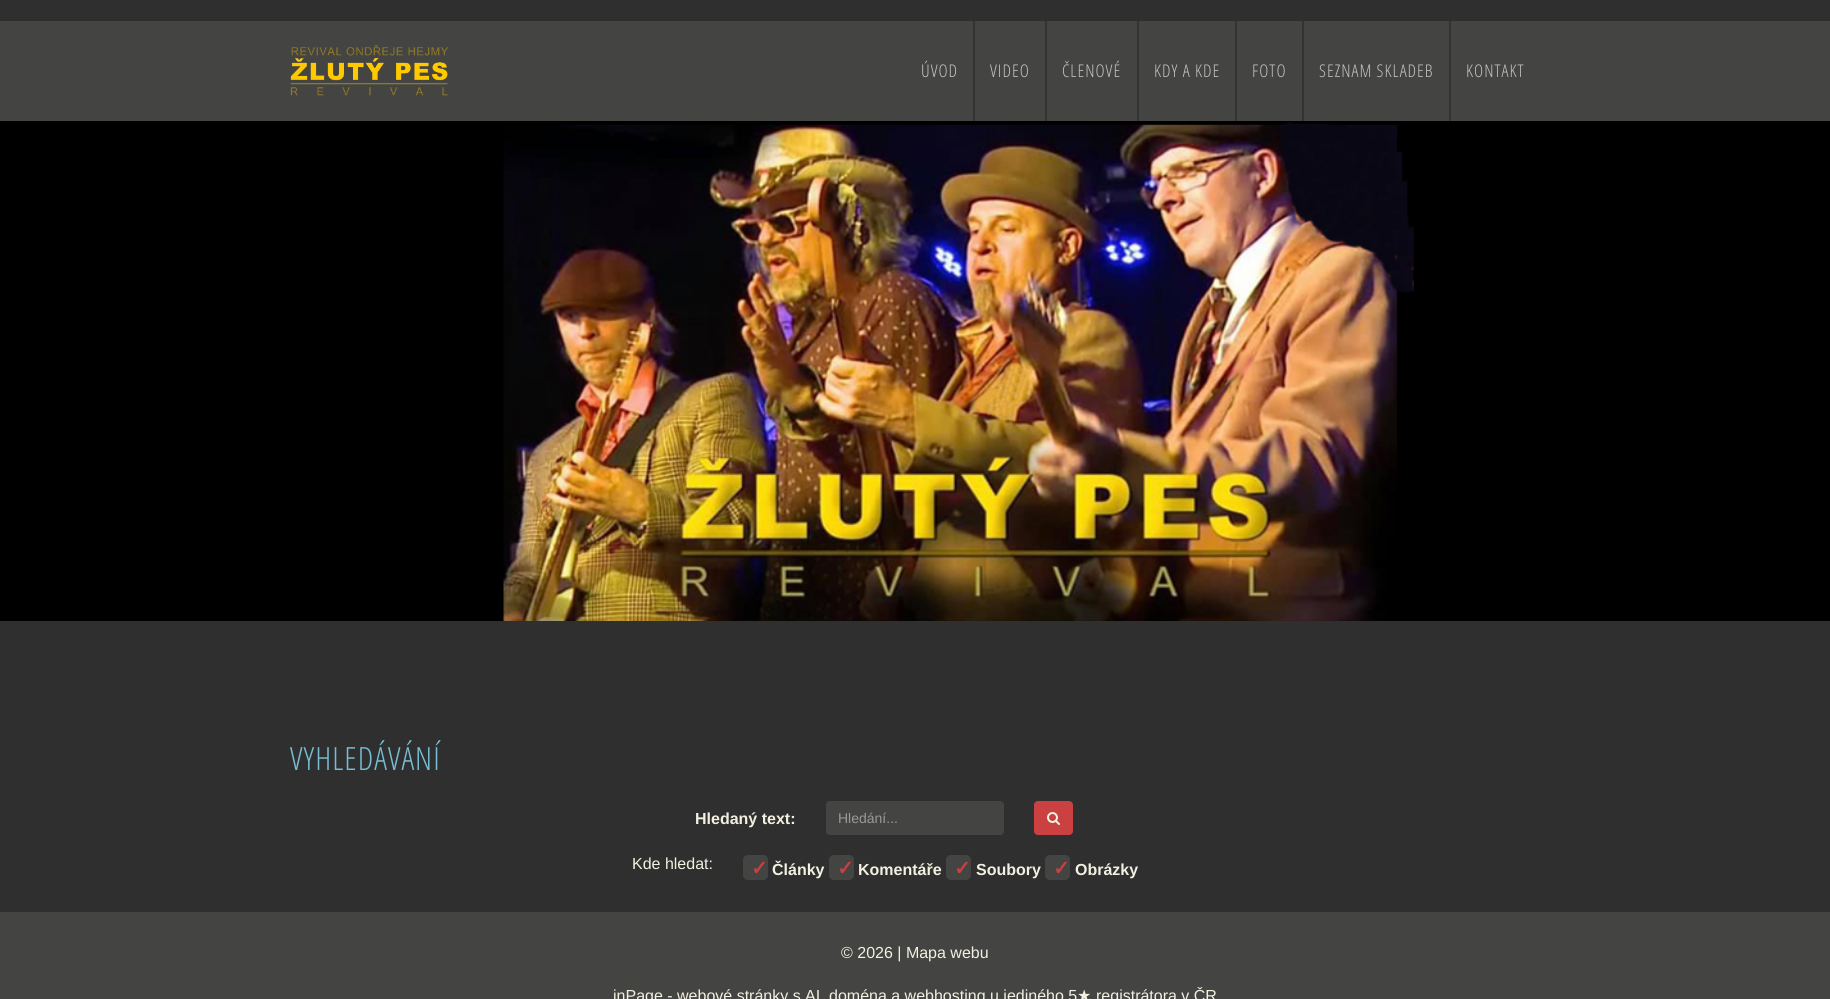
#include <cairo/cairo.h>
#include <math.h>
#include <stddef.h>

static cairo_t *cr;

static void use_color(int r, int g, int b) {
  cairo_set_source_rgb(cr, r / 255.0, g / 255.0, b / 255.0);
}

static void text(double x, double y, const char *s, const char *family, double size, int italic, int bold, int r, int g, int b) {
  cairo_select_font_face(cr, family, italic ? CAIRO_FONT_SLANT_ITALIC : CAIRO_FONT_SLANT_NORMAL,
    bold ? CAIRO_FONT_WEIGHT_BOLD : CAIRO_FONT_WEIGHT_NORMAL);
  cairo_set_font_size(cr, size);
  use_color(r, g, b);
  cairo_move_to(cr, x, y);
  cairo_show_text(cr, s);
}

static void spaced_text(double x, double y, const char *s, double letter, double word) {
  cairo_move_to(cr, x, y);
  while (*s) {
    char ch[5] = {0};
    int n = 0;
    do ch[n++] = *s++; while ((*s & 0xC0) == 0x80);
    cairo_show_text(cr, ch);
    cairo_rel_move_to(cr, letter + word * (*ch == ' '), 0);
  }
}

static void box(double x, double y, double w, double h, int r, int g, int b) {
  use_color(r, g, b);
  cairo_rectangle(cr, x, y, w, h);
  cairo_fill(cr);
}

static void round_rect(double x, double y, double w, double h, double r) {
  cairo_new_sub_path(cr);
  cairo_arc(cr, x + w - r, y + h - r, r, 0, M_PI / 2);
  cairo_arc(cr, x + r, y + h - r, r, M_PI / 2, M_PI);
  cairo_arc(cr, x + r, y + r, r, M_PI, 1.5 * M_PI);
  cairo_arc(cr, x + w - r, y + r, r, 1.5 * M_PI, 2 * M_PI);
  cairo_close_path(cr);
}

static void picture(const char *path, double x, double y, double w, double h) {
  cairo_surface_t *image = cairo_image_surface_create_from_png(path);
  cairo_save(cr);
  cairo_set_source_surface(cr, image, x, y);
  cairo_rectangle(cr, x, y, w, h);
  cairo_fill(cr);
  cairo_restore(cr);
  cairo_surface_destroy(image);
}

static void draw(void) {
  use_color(47, 47, 47);
  cairo_paint(cr);
  box(0, 21, 1830, 100, 68, 68, 66);
  picture("img_01.png", 290, 45, 158, 51);
  box(973, 21, 2, 100, 51, 51, 51);
  box(1045, 21, 2, 100, 51, 51, 51);
  box(1137, 21, 2, 100, 51, 51, 51);
  box(1235, 21, 2, 100, 51, 51, 51);
  box(1302, 21, 2, 100, 51, 51, 51);
  box(1449, 21, 2, 100, 51, 51, 51);
  box(0, 912, 1830, 87, 68, 68, 66);
  picture("img_02.png", 0, 121, 1830, 500);
  round_rect(826, 801, 178, 34, 4);
  cairo_fill(cr);
  use_color(203, 64, 64);
  round_rect(1034.5, 801.5, 38, 33, 3.5);
  cairo_fill_preserve(cr);
  cairo_set_line_width(cr, 1);
  cairo_stroke(cr);
  picture("img_03.png", 1047, 812, 13, 13);
  use_color(68, 68, 66);
  round_rect(743.5, 855.5, 24, 24, 4.5);
  cairo_fill_preserve(cr);
  cairo_stroke(cr);
  round_rect(829.5, 855.5, 24, 24, 4.5);
  cairo_fill_preserve(cr);
  cairo_stroke(cr);
  round_rect(946.5, 855.5, 24, 24, 4.5);
  cairo_fill_preserve(cr);
  cairo_stroke(cr);
  round_rect(1045.5, 855.5, 24, 24, 4.5);
  cairo_fill_preserve(cr);
  cairo_stroke(cr);
  cairo_select_font_face(cr, "Open Sans Light", CAIRO_FONT_SLANT_NORMAL, CAIRO_FONT_WEIGHT_NORMAL);
  cairo_set_font_size(cr, 17.5);
  use_color(196, 196, 196);
  spaced_text(921, 77, "ÚVOD", 1, 0);
  spaced_text(990, 77, "VIDEO", 1, 0);
  spaced_text(1062, 77, "ČLENOVÉ", 1, 0);
  spaced_text(1154, 77, "KDY A KDE", 1, 0);
  spaced_text(1252, 77, "FOTO", 1, 0);
  spaced_text(1319, 77, "SEZNAM SKLADEB", 1, 0);
  spaced_text(1466, 77, "KONTAKT", 1, 0);
  cairo_set_font_size(cr, 32);
  use_color(119, 190, 212);
  spaced_text(290, 770, "VYHLEDÁVÁNÍ", 1, 0);
  text(695, 824, "Hledaný text:", "Liberation Sans", 16, 0, 1, 242, 240, 224);
  text(838, 823, "Hledání...", "Liberation Sans", 14, 0, 0, 153, 153, 153);
  text(632, 869, "Kde hledat:", "Liberation Sans", 16, 0, 0, 242, 240, 224);
  text(751, 875, "✓", "DejaVu Sans", 20, 0, 1, 203, 64, 64);
  text(772, 875, "Články", "Liberation Sans", 16, 0, 1, 242, 240, 224);
  text(837, 875, "✓", "DejaVu Sans", 20, 0, 1, 203, 64, 64);
  text(858, 875, "Komentáře", "Liberation Sans", 16, 0, 1, 242, 240, 224);
  text(954, 875, "✓", "DejaVu Sans", 20, 0, 1, 203, 64, 64);
  text(976, 875, "Soubory", "Liberation Sans", 16, 0, 1, 242, 240, 224);
  text(1053, 875, "✓", "DejaVu Sans", 20, 0, 1, 203, 64, 64);
  text(1075, 875, "Obrázky", "Liberation Sans", 16, 0, 1, 242, 240, 224);
  text(841, 958, "© 2026 | Mapa webu", "Liberation Sans", 16, 0, 0, 242, 240, 224);
  text(613, 1001, "inPage - webové stránky s AI", "Liberation Sans", 16, 0, 0, 242, 240, 224);
  text(829, 1001, "doména a webhosting u jediného 5", "Liberation Sans", 16, 0, 0, 242, 240, 224);
  text(1077, 1001, "★", "DejaVu Sans", 16, 0, 0, 242, 240, 224);
  text(1096, 1001, "registrátora v ČR", "Liberation Sans", 16, 0, 0, 242, 240, 224);
}

int main(void) {
  cairo_surface_t *surface = cairo_image_surface_create(CAIRO_FORMAT_RGB24, 1830, 999);
  cr = cairo_create(surface);
  cairo_font_options_t *options = cairo_font_options_create();
  cairo_font_options_set_hint_metrics(options, CAIRO_HINT_METRICS_OFF);
  cairo_font_options_set_hint_style(options, CAIRO_HINT_STYLE_NONE);
  cairo_set_font_options(cr, options);
  cairo_set_miter_limit(cr, 4);
  draw();
  cairo_surface_write_to_png(surface, "out.png");
  cairo_font_options_destroy(options);
  cairo_destroy(cr);
  cairo_surface_destroy(surface);
  return 0;
}
